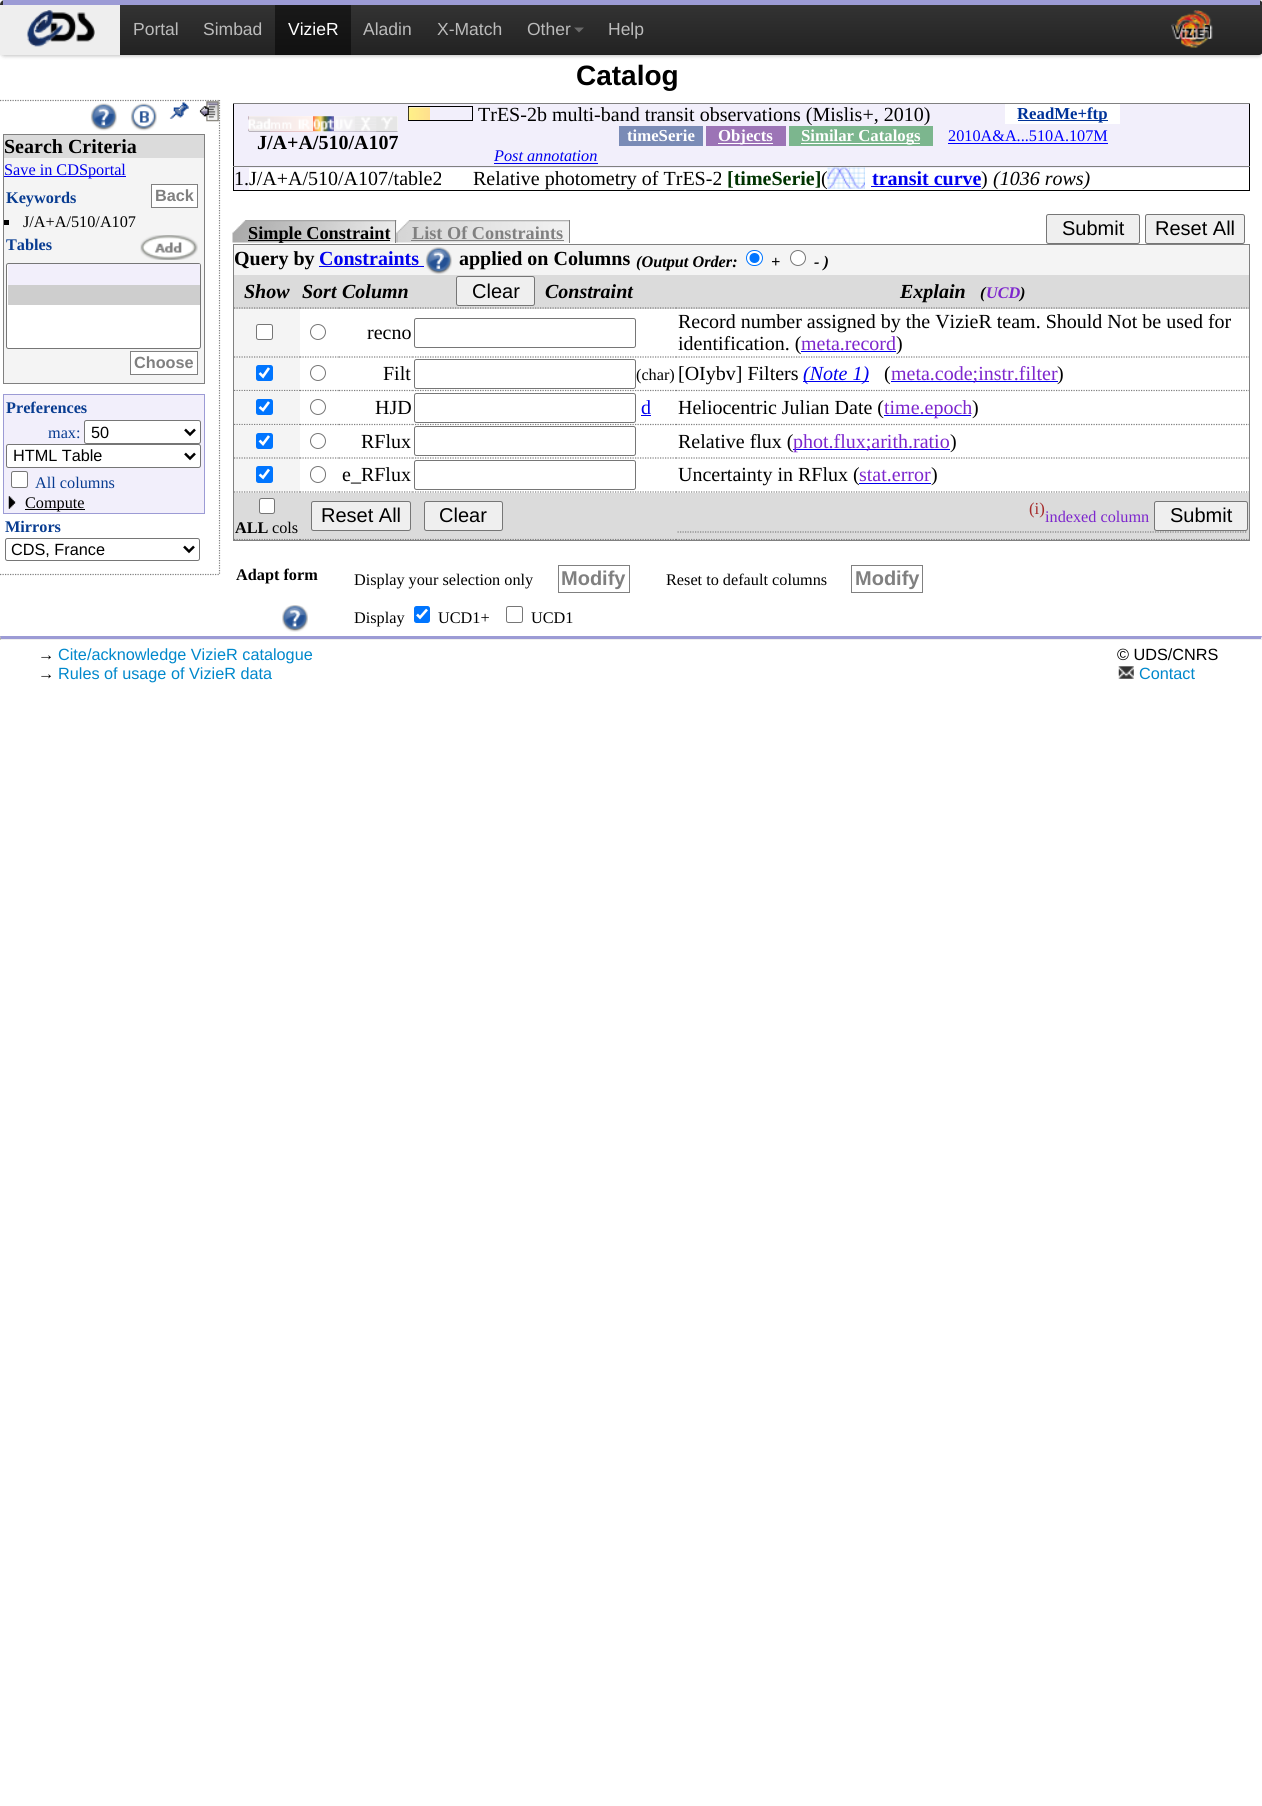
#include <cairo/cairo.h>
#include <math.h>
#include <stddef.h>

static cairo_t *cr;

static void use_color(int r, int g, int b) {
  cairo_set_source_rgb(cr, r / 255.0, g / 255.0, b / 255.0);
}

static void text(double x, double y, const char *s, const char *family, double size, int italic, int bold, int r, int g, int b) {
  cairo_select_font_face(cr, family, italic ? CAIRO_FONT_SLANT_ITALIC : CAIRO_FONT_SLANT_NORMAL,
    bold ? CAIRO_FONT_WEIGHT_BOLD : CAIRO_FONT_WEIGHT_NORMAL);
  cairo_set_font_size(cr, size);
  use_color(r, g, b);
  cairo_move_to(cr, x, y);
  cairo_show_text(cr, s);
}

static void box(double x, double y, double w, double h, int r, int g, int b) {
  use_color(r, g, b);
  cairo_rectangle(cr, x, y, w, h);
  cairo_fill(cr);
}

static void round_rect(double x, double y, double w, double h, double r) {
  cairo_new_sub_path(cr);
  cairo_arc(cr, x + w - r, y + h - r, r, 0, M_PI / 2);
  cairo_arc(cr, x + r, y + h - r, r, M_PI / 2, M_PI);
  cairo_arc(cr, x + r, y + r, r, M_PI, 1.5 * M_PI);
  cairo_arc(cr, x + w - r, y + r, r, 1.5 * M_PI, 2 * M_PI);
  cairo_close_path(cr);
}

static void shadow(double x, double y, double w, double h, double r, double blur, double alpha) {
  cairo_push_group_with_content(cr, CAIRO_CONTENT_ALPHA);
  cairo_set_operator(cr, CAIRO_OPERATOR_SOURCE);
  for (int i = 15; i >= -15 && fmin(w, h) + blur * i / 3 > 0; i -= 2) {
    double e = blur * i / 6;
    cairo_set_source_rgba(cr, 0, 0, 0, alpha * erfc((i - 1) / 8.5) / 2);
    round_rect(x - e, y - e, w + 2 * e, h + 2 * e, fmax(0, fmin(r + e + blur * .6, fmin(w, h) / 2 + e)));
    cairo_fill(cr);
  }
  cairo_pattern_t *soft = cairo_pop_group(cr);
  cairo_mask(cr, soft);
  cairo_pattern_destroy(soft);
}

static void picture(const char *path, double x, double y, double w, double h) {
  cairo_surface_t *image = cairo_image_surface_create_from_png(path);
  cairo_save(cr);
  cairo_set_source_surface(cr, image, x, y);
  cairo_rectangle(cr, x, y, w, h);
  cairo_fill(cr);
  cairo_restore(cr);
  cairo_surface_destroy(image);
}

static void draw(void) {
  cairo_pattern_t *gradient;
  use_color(255, 255, 255);
  cairo_paint(cr);
  use_color(0, 0, 0);
  shadow(0, 1, 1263, 55, 5, 2, 0.25);
  use_color(44, 44, 44);
  round_rect(0, 0, 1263, 55, 5);
  cairo_fill(cr);
  gradient = cairo_pattern_create_linear(631, 5, 631, 55);
  cairo_pattern_add_color_stop_rgba(gradient, 0, 0.2, 0.2, 0.2, 1);
  cairo_pattern_add_color_stop_rgba(gradient, 1, 0.133, 0.133, 0.133, 1);
  cairo_set_source(cr, gradient);
  cairo_pattern_destroy(gradient);
  cairo_new_path(cr);
  cairo_move_to(cr, 0, 5);
  cairo_line_to(cr, 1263, 5);
  cairo_line_to(cr, 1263, 50);
  cairo_curve_to(cr, 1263, 53, 1261, 55, 1258, 55);
  cairo_line_to(cr, 5, 55);
  cairo_curve_to(cr, 2, 55, 0, 53, 0, 50);
  cairo_close_path(cr);
  cairo_fill(cr);
  cairo_set_source_rgba(cr, 0, 0, 0, 0.1);
  cairo_new_path(cr);
  cairo_move_to(cr, 0, 49);
  cairo_line_to(cr, 0, 50);
  cairo_curve_to(cr, 0, 53, 2, 55, 5, 55);
  cairo_line_to(cr, 1258, 55);
  cairo_curve_to(cr, 1260, 55, 1262, 53, 1262, 50);
  cairo_line_to(cr, 1262, 5);
  cairo_line_to(cr, 1262, 49);
  cairo_curve_to(cr, 1262, 52, 1260, 54, 1258, 54);
  cairo_line_to(cr, 5, 54);
  cairo_curve_to(cr, 2, 54, 0, 52, 0, 49);
  cairo_close_path(cr);
  cairo_fill(cr);
  box(3, 0, 1257, 5, 156, 155, 213);
  box(0, 5, 120, 50, 238, 238, 238);
  picture("img_01.png", 26, 10, 69, 37);
  cairo_set_source_rgba(cr, 0, 0, 0, 0.5);
  cairo_rectangle(cr, 275, 5, 76, 50);
  cairo_fill(cr);
  use_color(106, 106, 106);
  cairo_new_path(cr);
  cairo_move_to(cr, 574, 27.5);
  cairo_line_to(cr, 584, 27.5);
  cairo_line_to(cr, 579, 32.5);
  cairo_close_path(cr);
  cairo_fill(cr);
  picture("img_02.png", 1171, 10, 42, 38);
  cairo_new_path(cr);
  cairo_move_to(cr, 0, 100.5);
  cairo_line_to(cr, 220, 100.5);
  use_color(128, 128, 128);
  cairo_set_line_width(cr, 1.2);
  cairo_set_dash(cr, (double[]){1.25, 1.25}, 2, 0);
  cairo_stroke(cr);
  cairo_new_path(cr);
  cairo_move_to(cr, 219.5, 100);
  cairo_line_to(cr, 219.5, 575);
  cairo_stroke(cr);
  cairo_new_path(cr);
  cairo_move_to(cr, 0, 574.5);
  cairo_line_to(cr, 220, 574.5);
  cairo_stroke(cr);
  picture("img_03.png", 90, 103, 27, 28);
  picture("img_04.png", 130, 103, 27, 28);
  picture("img_05.png", 169, 102, 20, 17);
  picture("img_06.png", 199, 101, 20, 21);
  box(4, 158, 200, 225, 244, 244, 244);
  cairo_rectangle(cr, 3.5, 134.5, 201, 249);
  use_color(128, 128, 128);
  cairo_set_line_width(cr, 1);
  cairo_set_dash(cr, NULL, 0, 0);
  cairo_stroke(cr);
  box(4, 135, 200, 23, 219, 219, 219);
  box(4, 176, 122, 1, 0, 0, 238);
  use_color(255, 255, 255);
  cairo_rectangle(cr, 151.5, 184.5, 46, 23);
  cairo_fill_preserve(cr);
  use_color(128, 128, 128);
  cairo_stroke(cr);
  box(4, 220, 5, 5, 0, 0, 0);
  picture("img_07.png", 140, 235, 58, 25);
  use_color(255, 255, 255);
  round_rect(6.5, 263.5, 194, 85, 2);
  cairo_fill_preserve(cr);
  use_color(118, 118, 118);
  cairo_stroke(cr);
  use_color(242, 239, 251);
  cairo_new_path(cr);
  cairo_move_to(cr, 9, 264);
  cairo_line_to(cr, 199, 264);
  cairo_curve_to(cr, 199.5, 264, 200, 264.5, 200, 265);
  cairo_line_to(cr, 200, 285);
  cairo_line_to(cr, 8, 285);
  cairo_line_to(cr, 8, 265);
  cairo_curve_to(cr, 8, 264.5, 8.5, 264, 9, 264);
  cairo_close_path(cr);
  cairo_fill(cr);
  box(8, 285, 192, 20, 206, 206, 206);
  use_color(255, 255, 255);
  cairo_rectangle(cr, 130.5, 351.5, 67, 23);
  cairo_fill_preserve(cr);
  use_color(128, 128, 128);
  cairo_stroke(cr);
  use_color(242, 239, 251);
  cairo_rectangle(cr, 3.5, 394.5, 201, 119);
  cairo_fill_preserve(cr);
  use_color(156, 155, 213);
  cairo_stroke(cr);
  use_color(255, 255, 255);
  round_rect(84.5, 420.5, 116, 23, 2);
  cairo_fill_preserve(cr);
  use_color(118, 118, 118);
  cairo_stroke(cr);
  cairo_new_path(cr);
  cairo_move_to(cr, 185, 429.5);
  cairo_line_to(cr, 190, 434.5);
  cairo_line_to(cr, 195, 429.5);
  use_color(0, 0, 0);
  cairo_set_line_width(cr, 2.5);
  cairo_stroke(cr);
  use_color(255, 255, 255);
  round_rect(6.5, 444.5, 194, 23, 2);
  cairo_fill_preserve(cr);
  use_color(118, 118, 118);
  cairo_set_line_width(cr, 1);
  cairo_stroke(cr);
  cairo_new_path(cr);
  cairo_move_to(cr, 185, 453.5);
  cairo_line_to(cr, 190, 458.5);
  cairo_line_to(cr, 195, 453.5);
  use_color(0, 0, 0);
  cairo_set_line_width(cr, 2.5);
  cairo_stroke(cr);
  use_color(255, 255, 255);
  round_rect(11.5, 471.5, 16, 16, 2);
  cairo_fill_preserve(cr);
  use_color(118, 118, 118);
  cairo_set_line_width(cr, 1);
  cairo_stroke(cr);
  picture("img_08.png", 8, 496, 8, 13);
  box(25, 509, 60, 1, 0, 0, 0);
  round_rect(5.5, 538.5, 194, 22, 2);
  use_color(118, 118, 118);
  cairo_stroke(cr);
  cairo_new_path(cr);
  cairo_move_to(cr, 184, 546.5);
  cairo_line_to(cr, 189, 551.5);
  cairo_line_to(cr, 194, 546.5);
  use_color(0, 0, 0);
  cairo_set_line_width(cr, 2.5);
  cairo_stroke(cr);
  box(1249, 103, 1, 88, 0, 0, 0);
  box(233, 190, 1017, 1, 0, 0, 0);
  box(233, 103, 1, 88, 0, 0, 0);
  box(233, 103, 1017, 1, 128, 128, 128);
  box(234, 104, 1015, 64, 242, 239, 251);
  picture("img_09.png", 248, 116, 150, 16);
  cairo_set_source_rgba(cr, 1, 1, 1, 0.9);
  cairo_rectangle(cr, 249, 116, 21, 15);
  cairo_fill(cr);
  cairo_rectangle(cr, 270, 116, 21, 15);
  cairo_fill(cr);
  cairo_rectangle(cr, 291, 116, 22, 15);
  cairo_fill(cr);
  cairo_rectangle(cr, 334, 116, 21, 15);
  cairo_fill(cr);
  cairo_rectangle(cr, 355, 116, 21, 15);
  cairo_fill(cr);
  cairo_rectangle(cr, 376, 116, 22, 15);
  cairo_fill(cr);
  cairo_rectangle(cr, 408.5, 106.5, 64, 14);
  use_color(0, 0, 0);
  cairo_set_line_width(cr, 1);
  cairo_stroke(cr);
  picture("img_10.png", 408, 107, 22, 13);
  box(1005, 104, 115, 20, 255, 255, 255);
  box(1018, 120, 90, 1, 0, 51, 153);
  box(619, 126, 84, 20, 122, 139, 182);
  box(706, 126, 80, 20, 156, 116, 182);
  box(718, 143, 55, 1, 255, 255, 255);
  box(789, 126, 144, 20, 124, 182, 142);
  box(801, 143, 119, 1, 255, 255, 255);
  box(948, 143, 160, 1, 0, 0, 255);
  box(494, 163, 104, 1, 0, 0, 238);
  box(234, 168, 15, 22, 242, 239, 251);
  box(233, 166, 1017, 1, 128, 128, 128);
  box(871, 186, 110, 1, 0, 0, 238);
  picture("img_12.png", 232, 220, 165, 23);
  picture("img_13.png", 396, 220, 173, 23);
  box(395, 220, 1, 23, 128, 128, 128);
  box(248, 240, 142, 1, 0, 0, 0);
  box(569, 220, 1, 23, 128, 128, 128);
  box(411, 240, 153, 1, 128, 128, 128);
  use_color(239, 239, 239);
  round_rect(1046.5, 214.5, 93, 29, 2);
  cairo_fill_preserve(cr);
  use_color(118, 118, 118);
  cairo_stroke(cr);
  use_color(239, 239, 239);
  round_rect(1145.5, 214.5, 99, 29, 2);
  cairo_fill_preserve(cr);
  use_color(118, 118, 118);
  cairo_stroke(cr);
  box(234, 245, 1015, 30, 244, 244, 244);
  cairo_rectangle(cr, 233.5, 244.5, 1016, 296);
  use_color(128, 128, 128);
  cairo_stroke(cr);
  box(319, 266, 105, 1, 0, 0, 238);
  picture("img_14.png", 425, 247, 27, 28);
  use_color(255, 255, 255);
  round_rect(746.5, 250.5, 16, 15, 7.5);
  cairo_fill_preserve(cr);
  use_color(0, 117, 255);
  cairo_stroke(cr);
  cairo_arc(cr, 754.5, 258, 5, 0, 2 * M_PI);
  cairo_fill(cr);
  use_color(255, 255, 255);
  cairo_arc(cr, 798, 258, 7.5, 0, 2 * M_PI);
  cairo_fill_preserve(cr);
  use_color(118, 118, 118);
  cairo_stroke(cr);
  box(234, 275, 1015, 34, 219, 219, 219);
  cairo_new_path(cr);
  cairo_move_to(cr, 234, 308);
  cairo_line_to(cr, 300, 308);
  use_color(128, 128, 128);
  cairo_set_line_width(cr, 1.2);
  cairo_set_dash(cr, (double[]){1.25, 1.25}, 2, 0);
  cairo_stroke(cr);
  cairo_new_path(cr);
  cairo_move_to(cr, 300, 308);
  cairo_line_to(cr, 339, 308);
  cairo_stroke(cr);
  cairo_new_path(cr);
  cairo_move_to(cr, 339, 308);
  cairo_line_to(cr, 412.5, 308);
  cairo_stroke(cr);
  cairo_new_path(cr);
  cairo_move_to(cr, 412.5, 308);
  cairo_line_to(cr, 676, 308);
  cairo_stroke(cr);
  use_color(239, 239, 239);
  round_rect(456.5, 276.5, 78, 29, 2);
  cairo_fill_preserve(cr);
  use_color(118, 118, 118);
  cairo_set_line_width(cr, 1);
  cairo_set_dash(cr, NULL, 0, 0);
  cairo_stroke(cr);
  cairo_new_path(cr);
  cairo_move_to(cr, 676, 308);
  cairo_line_to(cr, 1249, 308);
  use_color(128, 128, 128);
  cairo_set_line_width(cr, 1.2);
  cairo_set_dash(cr, (double[]){1.25, 1.25}, 2, 0);
  cairo_stroke(cr);
  box(234, 309, 66, 82, 244, 244, 244);
  cairo_new_path(cr);
  cairo_move_to(cr, 234, 357);
  cairo_line_to(cr, 300, 357);
  use_color(128, 128, 128);
  cairo_stroke(cr);
  use_color(255, 255, 255);
  round_rect(256.5, 324.5, 16, 15, 2);
  cairo_fill_preserve(cr);
  use_color(118, 118, 118);
  cairo_set_line_width(cr, 1);
  cairo_set_dash(cr, NULL, 0, 0);
  cairo_stroke(cr);
  cairo_new_path(cr);
  cairo_move_to(cr, 300, 357);
  cairo_line_to(cr, 339, 357);
  use_color(128, 128, 128);
  cairo_set_line_width(cr, 1.2);
  cairo_set_dash(cr, (double[]){1.25, 1.25}, 2, 0);
  cairo_stroke(cr);
  cairo_arc(cr, 318, 332, 7.5, 0, 2 * M_PI);
  use_color(118, 118, 118);
  cairo_set_line_width(cr, 1);
  cairo_set_dash(cr, NULL, 0, 0);
  cairo_stroke(cr);
  cairo_new_path(cr);
  cairo_move_to(cr, 339, 357);
  cairo_line_to(cr, 412.5, 357);
  use_color(128, 128, 128);
  cairo_set_line_width(cr, 1.2);
  cairo_set_dash(cr, (double[]){1.25, 1.25}, 2, 0);
  cairo_stroke(cr);
  cairo_new_path(cr);
  cairo_move_to(cr, 412.5, 357);
  cairo_line_to(cr, 676, 357);
  cairo_stroke(cr);
  round_rect(414.5, 318.5, 221, 29, 2);
  use_color(118, 118, 118);
  cairo_set_line_width(cr, 1);
  cairo_set_dash(cr, NULL, 0, 0);
  cairo_stroke(cr);
  cairo_new_path(cr);
  cairo_move_to(cr, 676, 357);
  cairo_line_to(cr, 1249, 357);
  use_color(128, 128, 128);
  cairo_set_line_width(cr, 1.2);
  cairo_set_dash(cr, (double[]){1.25, 1.25}, 2, 0);
  cairo_stroke(cr);
  box(801, 351, 95, 1, 0, 0, 238);
  cairo_new_path(cr);
  cairo_move_to(cr, 234, 390.5);
  cairo_line_to(cr, 300, 390.5);
  use_color(128, 128, 128);
  cairo_stroke(cr);
  use_color(0, 117, 255);
  round_rect(256, 365, 17, 16, 2.5);
  cairo_fill(cr);
  cairo_new_path(cr);
  cairo_move_to(cr, 259.5, 373);
  cairo_line_to(cr, 263, 376.5);
  cairo_line_to(cr, 269, 368);
  use_color(255, 255, 255);
  cairo_set_line_width(cr, 2.6);
  cairo_set_dash(cr, NULL, 0, 0);
  cairo_stroke(cr);
  cairo_new_path(cr);
  cairo_move_to(cr, 300, 390.5);
  cairo_line_to(cr, 339, 390.5);
  use_color(128, 128, 128);
  cairo_set_line_width(cr, 1.2);
  cairo_set_dash(cr, (double[]){1.25, 1.25}, 2, 0);
  cairo_stroke(cr);
  cairo_arc(cr, 318, 373, 7.5, 0, 2 * M_PI);
  use_color(118, 118, 118);
  cairo_set_line_width(cr, 1);
  cairo_set_dash(cr, NULL, 0, 0);
  cairo_stroke(cr);
  cairo_new_path(cr);
  cairo_move_to(cr, 339, 390.5);
  cairo_line_to(cr, 412.5, 390.5);
  use_color(128, 128, 128);
  cairo_set_line_width(cr, 1.2);
  cairo_set_dash(cr, (double[]){1.25, 1.25}, 2, 0);
  cairo_stroke(cr);
  cairo_new_path(cr);
  cairo_move_to(cr, 412.5, 390.5);
  cairo_line_to(cr, 676, 390.5);
  cairo_stroke(cr);
  round_rect(414.5, 359.5, 221, 29, 2);
  use_color(118, 118, 118);
  cairo_set_line_width(cr, 1);
  cairo_set_dash(cr, NULL, 0, 0);
  cairo_stroke(cr);
  cairo_new_path(cr);
  cairo_move_to(cr, 676, 390.5);
  cairo_line_to(cr, 1249, 390.5);
  use_color(128, 128, 128);
  cairo_set_line_width(cr, 1.2);
  cairo_set_dash(cr, (double[]){1.25, 1.25}, 2, 0);
  cairo_stroke(cr);
  box(803, 381, 66, 1, 0, 0, 238);
  box(891, 381, 167, 1, 0, 0, 238);
  box(234, 391, 66, 34, 244, 244, 244);
  cairo_new_path(cr);
  cairo_move_to(cr, 234, 424.5);
  cairo_line_to(cr, 300, 424.5);
  use_color(128, 128, 128);
  cairo_stroke(cr);
  use_color(0, 117, 255);
  round_rect(256, 399, 17, 16, 2.5);
  cairo_fill(cr);
  cairo_new_path(cr);
  cairo_move_to(cr, 259.5, 407);
  cairo_line_to(cr, 263, 410);
  cairo_line_to(cr, 269, 402);
  use_color(255, 255, 255);
  cairo_set_line_width(cr, 2.6);
  cairo_set_dash(cr, NULL, 0, 0);
  cairo_stroke(cr);
  cairo_new_path(cr);
  cairo_move_to(cr, 300, 424.5);
  cairo_line_to(cr, 339, 424.5);
  use_color(128, 128, 128);
  cairo_set_line_width(cr, 1.2);
  cairo_set_dash(cr, (double[]){1.25, 1.25}, 2, 0);
  cairo_stroke(cr);
  cairo_arc(cr, 318, 407, 7.5, 0, 2 * M_PI);
  use_color(118, 118, 118);
  cairo_set_line_width(cr, 1);
  cairo_set_dash(cr, NULL, 0, 0);
  cairo_stroke(cr);
  cairo_new_path(cr);
  cairo_move_to(cr, 339, 424.5);
  cairo_line_to(cr, 412.5, 424.5);
  use_color(128, 128, 128);
  cairo_set_line_width(cr, 1.2);
  cairo_set_dash(cr, (double[]){1.25, 1.25}, 2, 0);
  cairo_stroke(cr);
  cairo_new_path(cr);
  cairo_move_to(cr, 412.5, 424.5);
  cairo_line_to(cr, 676, 424.5);
  cairo_stroke(cr);
  round_rect(414.5, 393.5, 221, 29, 2);
  use_color(118, 118, 118);
  cairo_set_line_width(cr, 1);
  cairo_set_dash(cr, NULL, 0, 0);
  cairo_stroke(cr);
  box(641, 415, 10, 1, 0, 0, 238);
  cairo_new_path(cr);
  cairo_move_to(cr, 676, 424.5);
  cairo_line_to(cr, 1249, 424.5);
  use_color(128, 128, 128);
  cairo_set_line_width(cr, 1.2);
  cairo_set_dash(cr, (double[]){1.25, 1.25}, 2, 0);
  cairo_stroke(cr);
  box(884, 415, 87, 1, 0, 0, 238);
  box(234, 425, 66, 68, 244, 244, 244);
  cairo_new_path(cr);
  cairo_move_to(cr, 234, 458);
  cairo_line_to(cr, 300, 458);
  use_color(128, 128, 128);
  cairo_stroke(cr);
  use_color(0, 117, 255);
  round_rect(256, 433, 17, 16, 2.5);
  cairo_fill(cr);
  cairo_new_path(cr);
  cairo_move_to(cr, 259.5, 440.5);
  cairo_line_to(cr, 263, 444);
  cairo_line_to(cr, 269, 436);
  use_color(255, 255, 255);
  cairo_set_line_width(cr, 2.6);
  cairo_set_dash(cr, NULL, 0, 0);
  cairo_stroke(cr);
  cairo_new_path(cr);
  cairo_move_to(cr, 300, 458);
  cairo_line_to(cr, 339, 458);
  use_color(128, 128, 128);
  cairo_set_line_width(cr, 1.2);
  cairo_set_dash(cr, (double[]){1.25, 1.25}, 2, 0);
  cairo_stroke(cr);
  cairo_arc(cr, 318, 441, 7.5, 0, 2 * M_PI);
  use_color(118, 118, 118);
  cairo_set_line_width(cr, 1);
  cairo_set_dash(cr, NULL, 0, 0);
  cairo_stroke(cr);
  cairo_new_path(cr);
  cairo_move_to(cr, 339, 458);
  cairo_line_to(cr, 412.5, 458);
  use_color(128, 128, 128);
  cairo_set_line_width(cr, 1.2);
  cairo_set_dash(cr, (double[]){1.25, 1.25}, 2, 0);
  cairo_stroke(cr);
  cairo_new_path(cr);
  cairo_move_to(cr, 412.5, 458);
  cairo_line_to(cr, 676, 458);
  cairo_stroke(cr);
  round_rect(414.5, 426.5, 221, 29, 2);
  use_color(118, 118, 118);
  cairo_set_line_width(cr, 1);
  cairo_set_dash(cr, NULL, 0, 0);
  cairo_stroke(cr);
  cairo_new_path(cr);
  cairo_move_to(cr, 676, 458);
  cairo_line_to(cr, 1249, 458);
  use_color(128, 128, 128);
  cairo_set_line_width(cr, 1.2);
  cairo_set_dash(cr, (double[]){1.25, 1.25}, 2, 0);
  cairo_stroke(cr);
  box(793, 449, 157, 1, 0, 0, 238);
  cairo_new_path(cr);
  cairo_move_to(cr, 234, 492);
  cairo_line_to(cr, 300, 492);
  use_color(128, 128, 128);
  cairo_stroke(cr);
  use_color(0, 117, 255);
  round_rect(256, 466, 17, 17, 2.5);
  cairo_fill(cr);
  cairo_new_path(cr);
  cairo_move_to(cr, 259.5, 474.5);
  cairo_line_to(cr, 263, 477.5);
  cairo_line_to(cr, 269, 469.5);
  use_color(255, 255, 255);
  cairo_set_line_width(cr, 2.6);
  cairo_set_dash(cr, NULL, 0, 0);
  cairo_stroke(cr);
  cairo_new_path(cr);
  cairo_move_to(cr, 300, 492);
  cairo_line_to(cr, 339, 492);
  use_color(128, 128, 128);
  cairo_set_line_width(cr, 1.2);
  cairo_set_dash(cr, (double[]){1.25, 1.25}, 2, 0);
  cairo_stroke(cr);
  round_rect(310.5, 466.5, 15, 16, 7.5);
  use_color(118, 118, 118);
  cairo_set_line_width(cr, 1);
  cairo_set_dash(cr, NULL, 0, 0);
  cairo_stroke(cr);
  cairo_new_path(cr);
  cairo_move_to(cr, 339, 492);
  cairo_line_to(cr, 412.5, 492);
  use_color(128, 128, 128);
  cairo_set_line_width(cr, 1.2);
  cairo_set_dash(cr, (double[]){1.25, 1.25}, 2, 0);
  cairo_stroke(cr);
  cairo_new_path(cr);
  cairo_move_to(cr, 412.5, 492);
  cairo_line_to(cr, 676, 492);
  cairo_stroke(cr);
  round_rect(414.5, 460.5, 221, 29, 2);
  use_color(118, 118, 118);
  cairo_set_line_width(cr, 1);
  cairo_set_dash(cr, NULL, 0, 0);
  cairo_stroke(cr);
  cairo_new_path(cr);
  cairo_move_to(cr, 676, 492);
  cairo_line_to(cr, 1249, 492);
  use_color(128, 128, 128);
  cairo_set_line_width(cr, 1.2);
  cairo_set_dash(cr, (double[]){1.25, 1.25}, 2, 0);
  cairo_stroke(cr);
  box(859, 483, 72, 1, 0, 0, 238);
  box(234, 493, 1015, 47, 219, 219, 219);
  cairo_new_path(cr);
  cairo_move_to(cr, 300, 539.5);
  cairo_line_to(cr, 412.5, 539.5);
  use_color(128, 128, 128);
  cairo_stroke(cr);
  use_color(239, 239, 239);
  round_rect(311.5, 501.5, 99, 29, 2);
  cairo_fill_preserve(cr);
  use_color(118, 118, 118);
  cairo_set_line_width(cr, 1);
  cairo_set_dash(cr, NULL, 0, 0);
  cairo_stroke(cr);
  cairo_new_path(cr);
  cairo_move_to(cr, 412.5, 539.5);
  cairo_line_to(cr, 676, 539.5);
  use_color(128, 128, 128);
  cairo_set_line_width(cr, 1.2);
  cairo_set_dash(cr, (double[]){1.25, 1.25}, 2, 0);
  cairo_stroke(cr);
  use_color(239, 239, 239);
  round_rect(424.5, 501.5, 78, 29, 2);
  cairo_fill_preserve(cr);
  use_color(118, 118, 118);
  cairo_set_line_width(cr, 1);
  cairo_set_dash(cr, NULL, 0, 0);
  cairo_stroke(cr);
  cairo_new_path(cr);
  cairo_move_to(cr, 676, 539.5);
  cairo_line_to(cr, 1249, 539.5);
  use_color(128, 128, 128);
  cairo_set_line_width(cr, 1.2);
  cairo_set_dash(cr, (double[]){1.25, 1.25}, 2, 0);
  cairo_stroke(cr);
  cairo_new_path(cr);
  cairo_move_to(cr, 690, 532);
  cairo_line_to(cr, 1247.5, 532);
  cairo_stroke(cr);
  use_color(239, 239, 239);
  round_rect(1154.5, 501.5, 93, 29, 2);
  cairo_fill_preserve(cr);
  use_color(118, 118, 118);
  cairo_set_line_width(cr, 1);
  cairo_set_dash(cr, NULL, 0, 0);
  cairo_stroke(cr);
  cairo_new_path(cr);
  cairo_move_to(cr, 677.5, 532);
  cairo_line_to(cr, 690, 532);
  use_color(128, 128, 128);
  cairo_set_line_width(cr, 1.2);
  cairo_set_dash(cr, (double[]){1.25, 1.25}, 2, 0);
  cairo_stroke(cr);
  cairo_new_path(cr);
  cairo_move_to(cr, 234, 539.5);
  cairo_line_to(cr, 300, 539.5);
  cairo_stroke(cr);
  use_color(255, 255, 255);
  round_rect(259.5, 498.5, 15, 15, 2);
  cairo_fill_preserve(cr);
  use_color(118, 118, 118);
  cairo_set_line_width(cr, 1);
  cairo_set_dash(cr, NULL, 0, 0);
  cairo_stroke(cr);
  cairo_rectangle(cr, 558.5, 565.5, 71, 27);
  use_color(128, 128, 128);
  cairo_stroke(cr);
  cairo_rectangle(cr, 851.5, 565.5, 71, 27);
  cairo_stroke(cr);
  picture("img_15.png", 282, 605, 26, 27);
  use_color(0, 117, 255);
  round_rect(414, 606, 16, 17, 2.5);
  cairo_fill(cr);
  cairo_new_path(cr);
  cairo_move_to(cr, 417, 614.5);
  cairo_line_to(cr, 420, 617.5);
  cairo_line_to(cr, 427, 609.5);
  use_color(255, 255, 255);
  cairo_set_line_width(cr, 2.6);
  cairo_stroke(cr);
  round_rect(506.5, 606.5, 16, 16, 2);
  use_color(118, 118, 118);
  cairo_set_line_width(cr, 1);
  cairo_stroke(cr);
  use_color(156, 155, 213);
  cairo_new_path(cr);
  cairo_move_to(cr, 0, 636);
  cairo_line_to(cr, 1262, 636);
  cairo_line_to(cr, 1261, 639);
  cairo_line_to(cr, 1, 639);
  cairo_close_path(cr);
  cairo_fill(cr);
  use_color(238, 238, 238);
  cairo_new_path(cr);
  cairo_move_to(cr, 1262.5, 636);
  cairo_line_to(cr, 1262.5, 640);
  cairo_line_to(cr, 1261, 639);
  cairo_close_path(cr);
  cairo_fill(cr);
  box(0, 639, 1262, 1, 238, 238, 238);
  use_color(159, 159, 159);
  cairo_new_path(cr);
  cairo_move_to(cr, 0, 640);
  cairo_line_to(cr, 0, 636);
  cairo_line_to(cr, 1, 639);
  cairo_close_path(cr);
  cairo_fill(cr);
  picture("img_16.png", 1118, 666, 16, 13);
  text(133, 35, "Portal", "Liberation Sans", 17.5, 0, 0, 187, 187, 187);
  text(203, 35, "Simbad", "Liberation Sans", 17.5, 0, 0, 187, 187, 187);
  text(288, 35, "VizieR", "Liberation Sans", 17.5, 0, 0, 255, 255, 255);
  text(363, 35, "Aladin", "Liberation Sans", 17.5, 0, 0, 187, 187, 187);
  text(437, 35, "X-Match", "Liberation Sans", 17.5, 0, 0, 187, 187, 187);
  text(527, 35, "Other", "Liberation Sans", 17.5, 0, 0, 187, 187, 187);
  text(608, 35, "Help", "Liberation Sans", 17.5, 0, 0, 187, 187, 187);
  text(576, 85, "Catalog", "Liberation Sans", 28, 0, 1, 0, 0, 0);
  text(4, 153, "Search Criteria", "Liberation Serif", 20, 0, 1, 0, 0, 0);
  text(4, 175, "Save in CDSportal", "Liberation Serif", 16.25, 0, 0, 0, 0, 238);
  text(6, 203, "Keywords", "Liberation Serif", 16.25, 0, 1, 8, 60, 145);
  text(155, 201, "Back", "Liberation Sans", 16.25, 0, 1, 128, 128, 128);
  text(23, 227, "J/A+A/510/A107", "Liberation Serif", 16.25, 0, 0, 0, 0, 0);
  text(6, 250, "Tables", "Liberation Serif", 16.25, 0, 1, 8, 60, 145);
  text(134, 368, "Choose", "Liberation Sans", 16.25, 0, 1, 128, 128, 128);
  text(6, 413, "Preferences", "Liberation Serif", 16.25, 0, 1, 8, 60, 145);
  text(48, 438, "max:", "Liberation Serif", 16.25, 0, 0, 8, 60, 145);
  text(91, 438, "50", "Liberation Sans", 16.25, 0, 0, 0, 0, 0);
  text(13, 461, "HTML Table", "Liberation Sans", 16.25, 0, 0, 0, 0, 0);
  text(35, 488, "All columns", "Liberation Serif", 16.25, 0, 0, 8, 60, 145);
  text(25, 508, "Compute", "Liberation Serif", 16.25, 0, 0, 0, 0, 0);
  text(5, 532, "Mirrors", "Liberation Serif", 16.25, 0, 1, 8, 60, 145);
  text(11, 555, "CDS, France", "Liberation Sans", 16.25, 0, 0, 0, 0, 0);
  text(257, 149, "J/A+A/510/A107", "Liberation Serif", 20, 0, 1, 0, 0, 0);
  text(478, 121, "TrES-2b multi-band transit observations (Mislis+, 2010)", "Liberation Serif", 20, 0, 0, 0, 0, 0);
  text(1017, 119, "ReadMe+ftp", "Liberation Serif", 16.75, 0, 1, 0, 51, 153);
  text(627, 141, "timeSerie", "Liberation Serif", 16.75, 0, 1, 255, 255, 255);
  text(718, 141, "Objects", "Liberation Serif", 16.75, 0, 1, 255, 255, 255);
  text(801, 141, "Similar Catalogs", "Liberation Serif", 16.75, 0, 1, 255, 255, 255);
  text(948, 141, "2010A&A...510A.107M", "Liberation Serif", 16.25, 0, 0, 0, 0, 255);
  text(494, 161, "Post annotation", "Liberation Serif", 16.25, 1, 0, 0, 0, 238);
  text(234, 185, "1.J/A+A/510/A107/table2", "Liberation Serif", 20, 0, 0, 0, 0, 0);
  text(473, 185, "Relative photometry of TrES-2", "Liberation Serif", 20, 0, 0, 0, 0, 0);
  text(727, 185, "[timeSerie]", "Liberation Serif", 20, 0, 1, 0, 51, 0);
  text(821, 185, "(", "Liberation Serif", 20, 0, 0, 0, 0, 0);
  picture("img_11.png", 827, 167, 38, 22);
  text(872, 185, "transit curve", "Liberation Serif", 20, 0, 1, 0, 0, 238);
  text(981, 185, ")", "Liberation Serif", 20, 0, 0, 0, 0, 0);
  text(993, 185, "(1036 rows)", "Liberation Serif", 20, 1, 0, 0, 0, 0);
  text(248, 239, "Simple Constraint", "Liberation Serif", 18.25, 0, 1, 0, 0, 0);
  text(412, 239, "List Of Constraints", "Liberation Serif", 18.25, 0, 1, 128, 128, 128);
  text(1062, 235, "Submit", "Liberation Sans", 20, 0, 0, 0, 0, 0);
  text(1155, 235, "Reset All", "Liberation Sans", 20, 0, 0, 0, 0, 0);
  text(234, 265, "Query by", "Liberation Serif", 20, 0, 1, 0, 0, 0);
  text(319, 265, "Constraints", "Liberation Serif", 20, 0, 1, 0, 0, 238);
  text(459, 265, "applied on Columns", "Liberation Serif", 20, 0, 1, 0, 0, 0);
  text(636, 267, "(Output Order:", "Liberation Serif", 16.25, 1, 1, 0, 0, 0);
  text(771, 267, "+", "Liberation Serif", 16.25, 1, 1, 0, 0, 0);
  text(814, 267, "- )", "Liberation Serif", 16.25, 1, 1, 0, 0, 0);
  text(244, 298, "Show", "Liberation Serif", 20, 1, 1, 0, 0, 0);
  text(302, 298, "Sort", "Liberation Serif", 20, 1, 1, 0, 0, 0);
  text(342, 298, "Column", "Liberation Serif", 20, 1, 1, 0, 0, 0);
  text(472, 298, "Clear", "Liberation Sans", 20, 0, 0, 0, 0, 0);
  text(545, 298, "Constraint", "Liberation Serif", 20, 1, 1, 0, 0, 0);
  text(900, 298, "Explain", "Liberation Serif", 20, 1, 1, 0, 0, 0);
  text(980, 298, "(", "Liberation Serif", 16.25, 1, 1, 0, 0, 0);
  text(986, 298, "UCD", "Liberation Serif", 16.25, 1, 1, 125, 38, 205);
  text(1020, 298, ")", "Liberation Serif", 16.25, 1, 1, 0, 0, 0);
  text(367, 339, "recno", "Liberation Serif", 20, 0, 0, 0, 0, 0);
  text(678, 328, "Record number assigned by the VizieR team. Should Not be used for", "Liberation Serif", 20, 0, 0, 0, 0, 0);
  text(678, 350, "identification. (", "Liberation Serif", 20, 0, 0, 0, 0, 0);
  text(801, 350, "meta.record", "Liberation Serif", 20, 0, 0, 125, 38, 205);
  text(896, 350, ")", "Liberation Serif", 20, 0, 0, 0, 0, 0);
  text(383, 380, "Filt", "Liberation Serif", 20, 0, 0, 0, 0, 0);
  text(636, 380, "(char)", "Liberation Serif", 16.25, 0, 0, 0, 0, 0);
  text(678, 380, "[OIybv] Filters", "Liberation Serif", 20, 0, 0, 0, 0, 0);
  text(803, 380, "(Note 1)", "Liberation Serif", 20, 1, 0, 0, 0, 238);
  text(884, 380, "(", "Liberation Serif", 20, 0, 0, 0, 0, 0);
  text(891, 380, "meta.code;instr.filter", "Liberation Serif", 20, 0, 0, 125, 38, 205);
  text(1057, 380, ")", "Liberation Serif", 20, 0, 0, 0, 0, 0);
  text(375, 414, "HJD", "Liberation Serif", 20, 0, 0, 0, 0, 0);
  text(641, 414, "d", "Liberation Serif", 20, 0, 0, 0, 0, 238);
  text(678, 414, "Heliocentric Julian Date (", "Liberation Serif", 20, 0, 0, 0, 0, 0);
  text(884, 414, "time.epoch", "Liberation Serif", 20, 0, 0, 125, 38, 205);
  text(972, 414, ")", "Liberation Serif", 20, 0, 0, 0, 0, 0);
  text(361, 448, "RFlux", "Liberation Serif", 20, 0, 0, 0, 0, 0);
  text(678, 448, "Relative flux (", "Liberation Serif", 20, 0, 0, 0, 0, 0);
  text(793, 448, "phot.flux;arith.ratio", "Liberation Serif", 20, 0, 0, 125, 38, 205);
  text(950, 448, ")", "Liberation Serif", 20, 0, 0, 0, 0, 0);
  text(342, 481, "e_RFlux", "Liberation Serif", 20, 0, 0, 0, 0, 0);
  text(678, 481, "Uncertainty in RFlux (", "Liberation Serif", 20, 0, 0, 0, 0, 0);
  text(859, 481, "stat.error", "Liberation Serif", 20, 0, 0, 125, 38, 205);
  text(931, 481, ")", "Liberation Serif", 20, 0, 0, 0, 0, 0);
  text(321, 522, "Reset All", "Liberation Sans", 20, 0, 0, 0, 0, 0);
  text(439, 522, "Clear", "Liberation Sans", 20, 0, 0, 0, 0, 0);
  text(1029, 514, "(i)", "Liberation Serif", 16.75, 0, 0, 165, 42, 42);
  text(1045, 522, "indexed column", "Liberation Serif", 16.25, 0, 0, 125, 38, 205);
  text(1170, 522, "Submit", "Liberation Sans", 20, 0, 0, 0, 0, 0);
  text(235, 533, "ALL", "Liberation Serif", 16.25, 0, 1, 0, 0, 0);
  text(272, 533, "cols", "Liberation Serif", 16.25, 0, 0, 0, 0, 0);
  text(236, 580, "Adapt form", "Liberation Serif", 16.25, 0, 1, 0, 0, 0);
  text(354, 585, "Display your selection only", "Liberation Serif", 16.25, 0, 0, 0, 0, 0);
  text(561, 585, "Modify", "Liberation Sans", 20, 0, 1, 128, 128, 128);
  text(666, 585, "Reset to default columns", "Liberation Serif", 16.25, 0, 0, 0, 0, 0);
  text(855, 585, "Modify", "Liberation Sans", 20, 0, 1, 128, 128, 128);
  text(354, 623, "Display", "Liberation Serif", 16.25, 0, 0, 0, 0, 0);
  text(438, 623, "UCD1+", "Liberation Serif", 16.25, 0, 0, 0, 0, 0);
  text(531, 623, "UCD1", "Liberation Serif", 16.25, 0, 0, 0, 0, 0);
  text(38, 660, "→", "Liberation Sans", 16.25, 0, 0, 0, 0, 0);
  text(58, 660, "Cite/acknowledge VizieR catalogue", "Liberation Sans", 16.25, 0, 0, 0, 136, 204);
  text(38, 679, "→", "Liberation Sans", 16.25, 0, 0, 0, 0, 0);
  text(58, 679, "Rules of usage of VizieR data", "Liberation Sans", 16.25, 0, 0, 0, 136, 204);
  text(1117, 660, "© UDS/CNRS", "Liberation Sans", 16.25, 0, 0, 0, 0, 0);
  text(1139, 679, "Contact", "Liberation Sans", 16.25, 0, 0, 0, 136, 204);
}

int main(void) {
  cairo_surface_t *surface = cairo_image_surface_create(CAIRO_FORMAT_RGB24, 1262, 1806);
  cr = cairo_create(surface);
  cairo_font_options_t *options = cairo_font_options_create();
  cairo_font_options_set_hint_metrics(options, CAIRO_HINT_METRICS_OFF);
  cairo_font_options_set_hint_style(options, CAIRO_HINT_STYLE_NONE);
  cairo_set_font_options(cr, options);
  cairo_set_miter_limit(cr, 4);
  draw();
  cairo_surface_write_to_png(surface, "out.png");
  cairo_font_options_destroy(options);
  cairo_destroy(cr);
  cairo_surface_destroy(surface);
  return 0;
}
